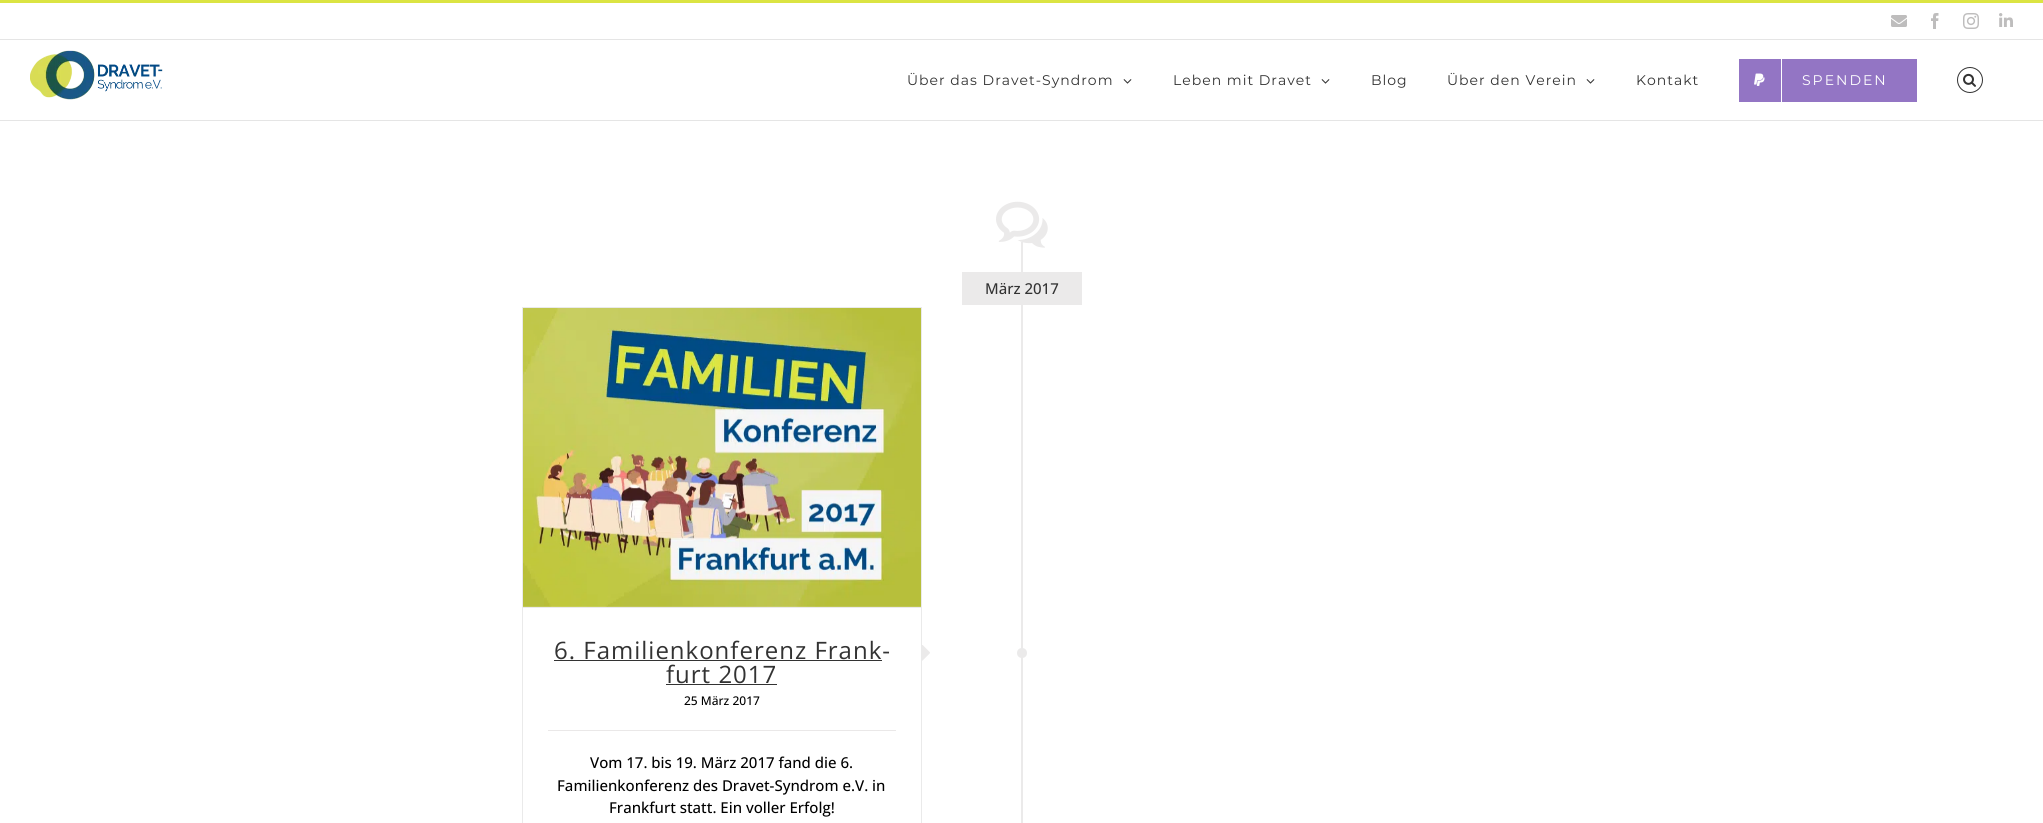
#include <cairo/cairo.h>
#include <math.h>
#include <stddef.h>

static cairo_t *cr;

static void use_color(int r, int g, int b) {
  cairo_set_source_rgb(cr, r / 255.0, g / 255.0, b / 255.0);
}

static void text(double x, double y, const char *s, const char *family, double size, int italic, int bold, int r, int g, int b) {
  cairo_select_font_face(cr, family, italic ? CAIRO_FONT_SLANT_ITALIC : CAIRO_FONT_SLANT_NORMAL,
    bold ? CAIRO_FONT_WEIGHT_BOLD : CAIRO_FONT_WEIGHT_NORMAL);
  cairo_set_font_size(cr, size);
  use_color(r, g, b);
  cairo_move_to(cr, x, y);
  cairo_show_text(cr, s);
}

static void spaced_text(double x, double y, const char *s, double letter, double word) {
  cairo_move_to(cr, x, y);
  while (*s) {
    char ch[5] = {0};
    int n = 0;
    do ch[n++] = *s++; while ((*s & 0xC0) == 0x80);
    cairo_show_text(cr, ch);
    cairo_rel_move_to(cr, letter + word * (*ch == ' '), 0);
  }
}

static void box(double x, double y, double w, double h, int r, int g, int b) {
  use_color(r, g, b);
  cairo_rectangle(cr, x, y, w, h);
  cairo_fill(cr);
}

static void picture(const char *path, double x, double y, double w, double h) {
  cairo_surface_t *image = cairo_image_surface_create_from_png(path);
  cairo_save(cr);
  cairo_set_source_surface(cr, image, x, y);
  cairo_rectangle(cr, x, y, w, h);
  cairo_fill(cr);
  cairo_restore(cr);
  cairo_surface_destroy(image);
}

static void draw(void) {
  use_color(255, 255, 255);
  cairo_paint(cr);
  box(0, 0, 2043, 3, 219, 228, 66);
  box(0, 39, 2043, 1, 229, 229, 229);
  picture("img_01.png", 1891, 15, 16, 12);
  picture("img_02.png", 1931, 13, 8, 16);
  picture("img_03.png", 1963, 13, 16, 16);
  picture("img_04.png", 1999, 13, 14, 14);
  box(0, 120, 2043, 1, 229, 229, 229);
  picture("img_05.png", 30, 50, 133, 50);
  picture("img_06.png", 1123, 79, 9, 5);
  picture("img_06.png", 1321, 79, 9, 5);
  picture("img_06.png", 1586, 79, 9, 5);
  box(1739, 59, 178, 43, 147, 117, 196);
  box(1781, 59, 1, 43, 255, 255, 255);
  picture("img_07.png", 1754, 73, 11, 13);
  cairo_arc(cr, 1970, 80, 12.5, 0, 2 * M_PI);
  use_color(51, 51, 51);
  cairo_set_line_width(cr, 1);
  cairo_stroke(cr);
  picture("img_08.png", 1963, 73, 13, 14);
  picture("img_09.png", 996, 201, 52, 47);
  box(1021, 242, 2, 581, 235, 234, 234);
  box(962, 272, 120, 33, 235, 234, 234);
  box(522, 307, 400, 1, 234, 234, 234);
  box(921, 307, 1, 516, 234, 234, 234);
  box(522, 307, 1, 516, 234, 234, 234);
  box(523, 607, 398, 1, 235, 234, 234);
  picture("img_10.png", 523, 308, 398, 299);
  box(554, 660, 328, 1, 51, 51, 51);
  box(666, 684, 111, 1, 51, 51, 51);
  box(548, 730, 348, 1, 234, 232, 232);
  picture("img_11.png", 922, 645, 8, 16);
  use_color(235, 234, 234);
  cairo_arc(cr, 1022, 653, 5, 0, 2 * M_PI);
  cairo_fill(cr);
  cairo_select_font_face(cr, "Montserrat", CAIRO_FONT_SLANT_NORMAL, CAIRO_FONT_WEIGHT_NORMAL);
  cairo_set_font_size(cr, 14);
  use_color(51, 51, 51);
  spaced_text(907, 85, "Über das Dravet-Syndrom", 1, 0);
  spaced_text(1173, 85, "Leben mit Dravet", 1, 0);
  spaced_text(1371, 85, "Blog", 1, 0);
  spaced_text(1447, 85, "Über den Verein", 1, 0);
  spaced_text(1636, 85, "Kontakt", 1, 0);
  use_color(255, 255, 255);
  spaced_text(1802, 85, "SPENDEN", 2, 0);
  text(985, 294, "März 2017", "Open Sans Medium", 15, 0, 0, 51, 51, 51);
  cairo_select_font_face(cr, "Open Sans", CAIRO_FONT_SLANT_NORMAL, CAIRO_FONT_WEIGHT_NORMAL);
  cairo_set_font_size(cr, 24);
  spaced_text(554, 659, "6. Familienkonferenz Frank-", 1, 0);
  spaced_text(666, 683, "furt 2017", 1, 0);
  text(684, 705, "25 März 2017", "Open Sans Medium", 12, 0, 0, 0, 0, 0);
  text(590, 768, "Vom 17. bis 19. März 2017 fand die 6.", "Open Sans Medium", 15, 0, 0, 0, 0, 0);
  text(557, 791, "Familienkonferenz des Dravet-Syndrom e.V. in", "Open Sans Medium", 15, 0, 0, 0, 0, 0);
  text(609, 813, "Frankfurt statt. Ein voller Erfolg!", "Open Sans Medium", 15, 0, 0, 0, 0, 0);
}

int main(void) {
  cairo_surface_t *surface = cairo_image_surface_create(CAIRO_FORMAT_RGB24, 2043, 823);
  cr = cairo_create(surface);
  cairo_font_options_t *options = cairo_font_options_create();
  cairo_font_options_set_hint_metrics(options, CAIRO_HINT_METRICS_OFF);
  cairo_font_options_set_hint_style(options, CAIRO_HINT_STYLE_NONE);
  cairo_set_font_options(cr, options);
  cairo_set_miter_limit(cr, 4);
  draw();
  cairo_surface_write_to_png(surface, "out.png");
  cairo_font_options_destroy(options);
  cairo_destroy(cr);
  cairo_surface_destroy(surface);
  return 0;
}
